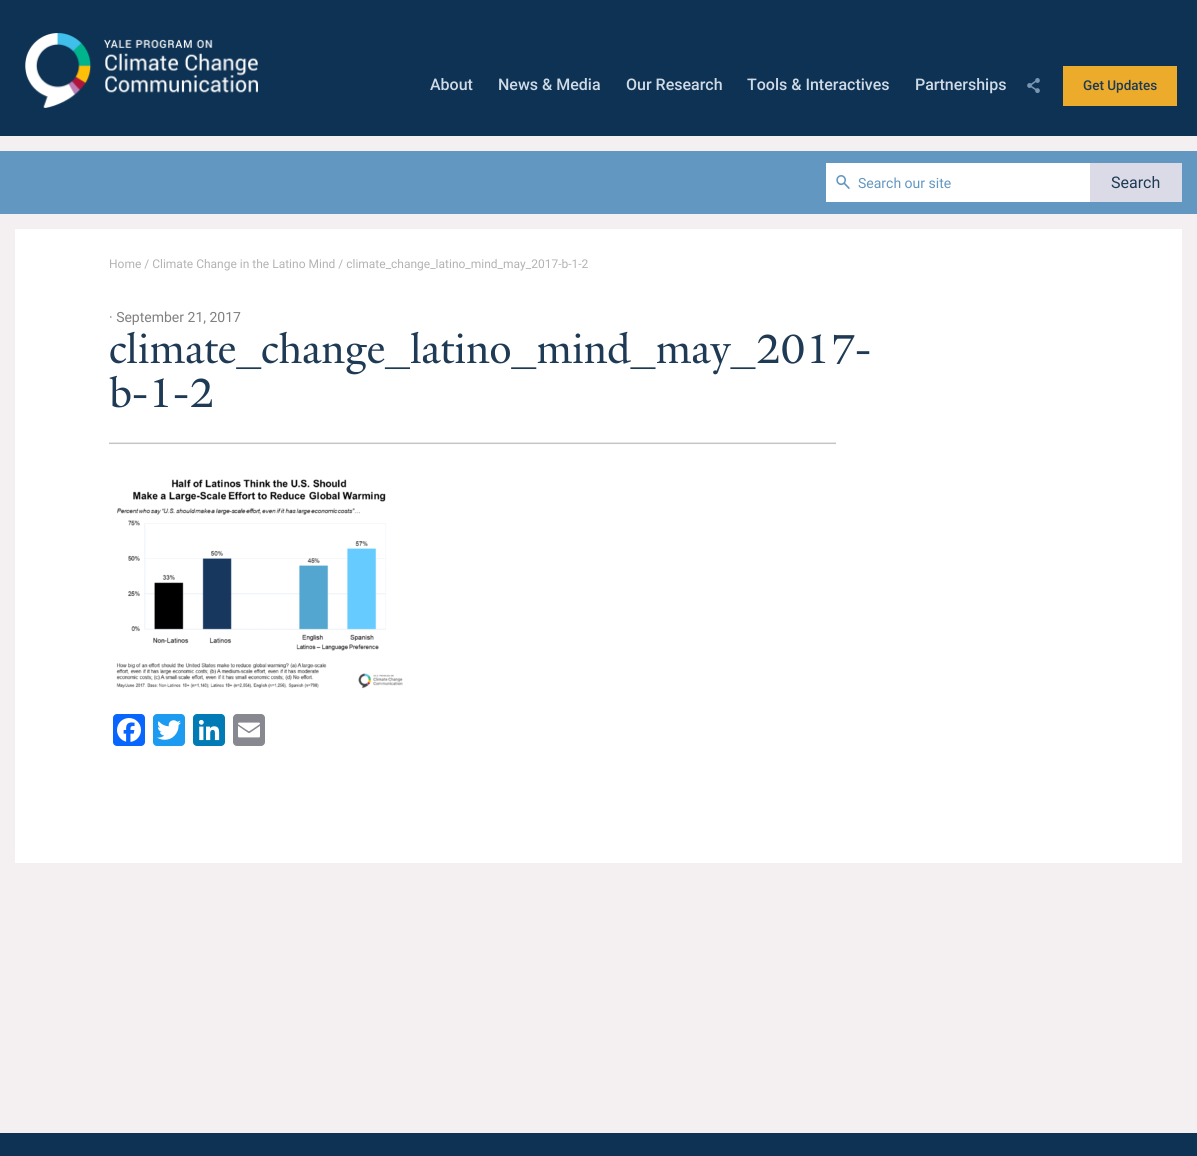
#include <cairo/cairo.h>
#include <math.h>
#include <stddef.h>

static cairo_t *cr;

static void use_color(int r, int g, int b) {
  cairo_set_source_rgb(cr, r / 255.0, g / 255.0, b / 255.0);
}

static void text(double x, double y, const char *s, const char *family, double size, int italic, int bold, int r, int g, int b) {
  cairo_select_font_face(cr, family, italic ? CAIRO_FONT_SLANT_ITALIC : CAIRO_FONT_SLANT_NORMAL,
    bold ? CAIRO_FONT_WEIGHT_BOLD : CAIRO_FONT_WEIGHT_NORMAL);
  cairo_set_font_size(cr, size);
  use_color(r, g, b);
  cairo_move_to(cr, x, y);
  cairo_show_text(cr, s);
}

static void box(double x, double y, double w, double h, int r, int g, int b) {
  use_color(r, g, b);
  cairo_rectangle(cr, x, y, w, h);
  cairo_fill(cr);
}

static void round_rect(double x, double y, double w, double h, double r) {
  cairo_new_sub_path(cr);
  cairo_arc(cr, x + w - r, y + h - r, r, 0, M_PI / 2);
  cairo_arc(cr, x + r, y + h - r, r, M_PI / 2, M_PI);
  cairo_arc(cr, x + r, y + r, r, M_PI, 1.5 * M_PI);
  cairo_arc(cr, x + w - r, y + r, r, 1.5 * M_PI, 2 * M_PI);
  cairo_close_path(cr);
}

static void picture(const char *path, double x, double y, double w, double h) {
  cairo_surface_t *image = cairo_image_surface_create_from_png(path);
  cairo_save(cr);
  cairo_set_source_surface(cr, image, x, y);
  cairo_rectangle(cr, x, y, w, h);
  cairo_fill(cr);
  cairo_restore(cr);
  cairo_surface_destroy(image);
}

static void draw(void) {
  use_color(244, 240, 242);
  cairo_paint(cr);
  box(0, 0, 1197, 136, 14, 50, 84);
  picture("img_01.png", 25, 33, 233, 75);
  picture("img_02.png", 1027, 78, 13, 15);
  box(1063, 66, 114, 40, 237, 171, 43);
  box(0, 151, 1197, 63, 98, 151, 194);
  box(826, 163, 264, 39, 255, 255, 255);
  picture("img_03.png", 836, 175, 14, 14);
  box(1090, 163, 92, 39, 218, 219, 230);
  box(15, 229, 1167, 634, 255, 255, 255);
  box(109, 443, 727, 1, 196, 196, 196);
  box(109, 442, 727, 1, 230, 230, 229);
  box(109, 444, 727, 1, 252, 252, 252);
  picture("img_04.png", 116, 479, 287, 210);
  use_color(8, 102, 255);
  round_rect(113, 714, 32, 32, 4);
  cairo_fill(cr);
  picture("img_05.png", 117, 718, 24, 24);
  use_color(29, 155, 240);
  round_rect(153, 714, 32, 32, 4);
  cairo_fill(cr);
  picture("img_06.png", 157, 720, 24, 20);
  use_color(0, 123, 181);
  round_rect(193, 714, 32, 32, 4);
  cairo_fill(cr);
  picture("img_07.png", 198, 719, 22, 22);
  use_color(136, 137, 144);
  round_rect(233, 714, 32, 32, 4);
  cairo_fill(cr);
  picture("img_08.png", 238, 722, 22, 16);
  box(0, 1133, 1197, 23, 14, 50, 84);
  text(430, 90, "About", "Roboto Medium", 16, 0, 0, 206, 218, 229);
  text(498, 90, "News & Media", "Roboto Medium", 16, 0, 0, 206, 218, 229);
  text(626, 90, "Our Research", "Roboto Medium", 16, 0, 0, 206, 218, 229);
  text(747, 90, "Tools & Interactives", "Roboto Medium", 16, 0, 0, 206, 218, 229);
  text(915, 90, "Partnerships", "Roboto Medium", 16, 0, 0, 206, 218, 229);
  text(1083, 90, "Get Updates", "Roboto Medium", 13.5, 0, 0, 30, 58, 84);
  text(858, 188, "Search our site", "Roboto", 14, 0, 0, 98, 151, 194);
  text(1111, 188, "Search", "Roboto", 16, 0, 0, 30, 58, 84);
  text(109, 268, "Home / Climate Change in the Latino Mind / climate_change_latino_mind_may_2017-b-1-2", "Roboto", 12, 0, 0, 179, 179, 179);
  text(109, 322, "· September 21, 2017", "Roboto", 14, 0, 0, 128, 128, 128);
  text(109, 363, "climate_change_latino_mind_may_2017-", "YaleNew", 44, 0, 0, 30, 58, 84);
  text(109, 407, "b-1-2", "YaleNew", 44, 0, 0, 30, 58, 84);
}

int main(void) {
  cairo_surface_t *surface = cairo_image_surface_create(CAIRO_FORMAT_RGB24, 1197, 1156);
  cr = cairo_create(surface);
  cairo_font_options_t *options = cairo_font_options_create();
  cairo_font_options_set_hint_metrics(options, CAIRO_HINT_METRICS_OFF);
  cairo_font_options_set_hint_style(options, CAIRO_HINT_STYLE_NONE);
  cairo_set_font_options(cr, options);
  cairo_set_miter_limit(cr, 4);
  draw();
  cairo_surface_write_to_png(surface, "out.png");
  cairo_font_options_destroy(options);
  cairo_destroy(cr);
  cairo_surface_destroy(surface);
  return 0;
}
